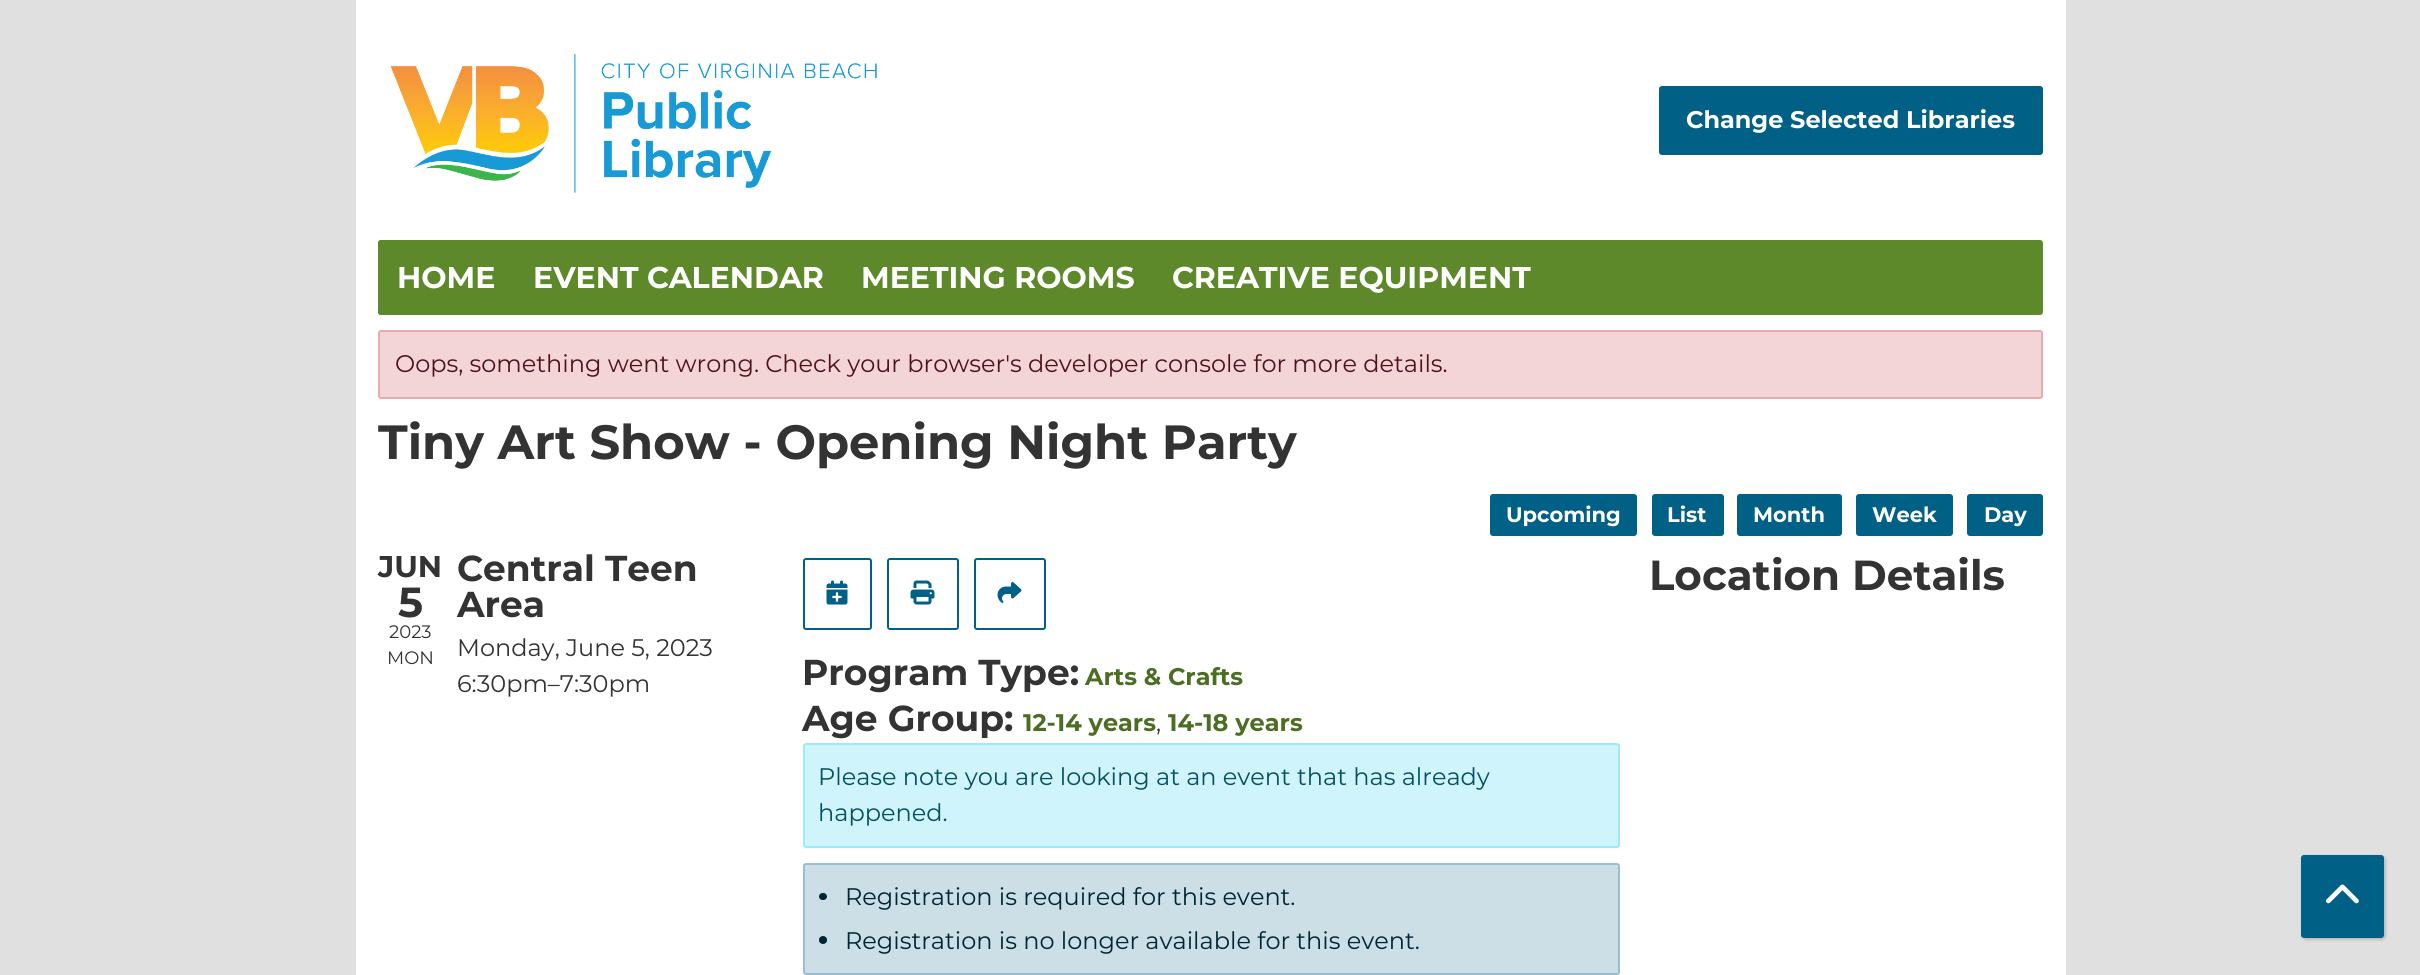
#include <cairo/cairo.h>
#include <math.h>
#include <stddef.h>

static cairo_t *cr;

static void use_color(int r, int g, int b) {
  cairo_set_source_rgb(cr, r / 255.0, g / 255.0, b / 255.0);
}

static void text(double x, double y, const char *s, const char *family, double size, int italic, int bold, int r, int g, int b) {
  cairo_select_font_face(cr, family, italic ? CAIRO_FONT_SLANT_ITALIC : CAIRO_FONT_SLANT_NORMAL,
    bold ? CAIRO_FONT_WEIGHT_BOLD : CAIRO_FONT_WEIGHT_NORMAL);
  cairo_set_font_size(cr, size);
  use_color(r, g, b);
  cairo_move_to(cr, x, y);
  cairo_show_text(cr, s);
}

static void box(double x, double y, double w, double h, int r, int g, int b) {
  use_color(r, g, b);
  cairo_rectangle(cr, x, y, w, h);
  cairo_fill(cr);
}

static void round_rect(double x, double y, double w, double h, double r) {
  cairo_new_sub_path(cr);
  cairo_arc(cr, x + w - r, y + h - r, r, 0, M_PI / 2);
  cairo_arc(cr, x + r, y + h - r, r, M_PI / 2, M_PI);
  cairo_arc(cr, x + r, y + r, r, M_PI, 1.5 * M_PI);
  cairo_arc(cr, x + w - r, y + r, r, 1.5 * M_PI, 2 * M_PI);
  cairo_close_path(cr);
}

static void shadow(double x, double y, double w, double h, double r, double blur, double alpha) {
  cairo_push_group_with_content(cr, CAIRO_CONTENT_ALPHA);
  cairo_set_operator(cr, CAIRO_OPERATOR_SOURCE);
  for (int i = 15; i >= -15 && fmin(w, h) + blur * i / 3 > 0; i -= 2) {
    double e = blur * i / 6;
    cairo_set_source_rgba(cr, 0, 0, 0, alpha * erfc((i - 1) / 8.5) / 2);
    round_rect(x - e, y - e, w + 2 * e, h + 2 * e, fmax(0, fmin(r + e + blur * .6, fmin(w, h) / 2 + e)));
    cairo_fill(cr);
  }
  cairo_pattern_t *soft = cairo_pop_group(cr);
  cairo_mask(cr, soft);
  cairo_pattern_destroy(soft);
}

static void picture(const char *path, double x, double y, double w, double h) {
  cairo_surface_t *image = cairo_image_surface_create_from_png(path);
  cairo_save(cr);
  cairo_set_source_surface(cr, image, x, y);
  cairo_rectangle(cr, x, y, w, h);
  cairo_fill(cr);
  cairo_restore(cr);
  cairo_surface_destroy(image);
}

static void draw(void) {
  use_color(224, 224, 224);
  cairo_paint(cr);
  box(356, 0, 1710, 975, 255, 255, 255);
  picture("img_01.png", 390, 54, 487, 139);
  use_color(0, 96, 134);
  round_rect(1660, 87, 382, 67, 2);
  cairo_fill_preserve(cr);
  cairo_stroke(cr);
  use_color(93, 137, 42);
  round_rect(378, 240, 1665, 75, 3);
  cairo_fill(cr);
  cairo_new_path(cr);
  cairo_move_to(cr, 381, 240);
  cairo_line_to(cr, 515, 240);
  cairo_line_to(cr, 515, 315);
  cairo_line_to(cr, 381, 315);
  cairo_curve_to(cr, 379.5, 315, 378, 313.5, 378, 312);
  cairo_line_to(cr, 378, 243);
  cairo_curve_to(cr, 378, 241.5, 379.5, 240, 381, 240);
  cairo_close_path(cr);
  cairo_fill(cr);
  use_color(243, 213, 216);
  round_rect(379, 331, 1663, 67, 2);
  cairo_fill_preserve(cr);
  use_color(231, 172, 177);
  cairo_stroke(cr);
  use_color(0, 96, 134);
  round_rect(1491, 495, 145, 40, 2);
  cairo_fill_preserve(cr);
  cairo_stroke(cr);
  round_rect(1653, 495, 70, 40, 2);
  cairo_fill_preserve(cr);
  cairo_stroke(cr);
  round_rect(1738, 495, 103, 40, 2);
  cairo_fill_preserve(cr);
  cairo_stroke(cr);
  round_rect(1857, 495, 95, 40, 2);
  cairo_fill_preserve(cr);
  cairo_stroke(cr);
  round_rect(1968, 495, 74, 40, 2);
  cairo_fill_preserve(cr);
  cairo_stroke(cr);
  round_rect(804, 559, 67, 70, 2);
  cairo_stroke(cr);
  picture("img_02.png", 826, 580, 22, 25);
  round_rect(888, 559, 70, 70, 2);
  cairo_stroke(cr);
  picture("img_03.png", 910, 580, 25, 25);
  round_rect(975, 559, 70, 70, 2);
  cairo_stroke(cr);
  picture("img_04.png", 997, 582, 25, 21);
  use_color(207, 244, 252);
  round_rect(804, 744, 815, 103, 2);
  cairo_fill_preserve(cr);
  use_color(158, 234, 249);
  cairo_stroke(cr);
  use_color(204, 223, 231);
  round_rect(804, 864, 815, 110, 2);
  cairo_fill_preserve(cr);
  use_color(153, 191, 207);
  cairo_stroke(cr);
  use_color(0, 38, 54);
  round_rect(819, 893, 8, 7, 3.5);
  cairo_fill(cr);
  cairo_arc(cr, 823, 940, 4, 0, 2 * M_PI);
  cairo_fill(cr);
  use_color(0, 0, 0);
  shadow(2303, 857, 82, 82, 3, 2, 0.25);
  use_color(0, 96, 134);
  round_rect(2302, 856, 81, 81, 2);
  cairo_fill_preserve(cr);
  cairo_stroke(cr);
  picture("img_05.png", 2326, 884, 33, 20);
  text(1686, 128, "Change Selected Libraries", "Montserrat", 24, 0, 1, 255, 255, 255);
  text(397, 288, "HOME", "Montserrat", 30, 0, 1, 255, 255, 255);
  text(533, 288, "EVENT CALENDAR", "Montserrat", 30, 0, 1, 255, 255, 255);
  text(861, 288, "MEETING ROOMS", "Montserrat", 30, 0, 1, 255, 255, 255);
  text(1172, 288, "CREATIVE EQUIPMENT", "Montserrat", 30, 0, 1, 255, 255, 255);
  text(395, 372, "Oops, something went wrong. Check your browser's developer console for more details.", "Montserrat", 24, 0, 0, 78, 19, 24);
  text(378, 459, "Tiny Art Show - Opening Night Party", "Montserrat", 48, 0, 1, 51, 51, 51);
  text(1506, 522, "Upcoming", "Montserrat", 21, 0, 1, 255, 255, 255);
  text(1667, 522, "List", "Montserrat", 21, 0, 1, 255, 255, 255);
  text(1753, 522, "Month", "Montserrat", 21, 0, 1, 255, 255, 255);
  text(1872, 522, "Week", "Montserrat", 21, 0, 1, 255, 255, 255);
  text(1984, 522, "Day", "Montserrat", 21, 0, 1, 255, 255, 255);
  text(378, 577, "JUN", "Montserrat", 30, 0, 1, 51, 51, 51);
  text(398, 617, "5", "Montserrat", 42, 0, 1, 51, 51, 51);
  text(389, 638, "2023", "Montserrat", 18, 0, 0, 51, 51, 51);
  text(387, 664, "MON", "Montserrat", 18, 0, 0, 51, 51, 51);
  text(457, 581, "Central Teen", "Montserrat", 36, 0, 1, 51, 51, 51);
  text(457, 617, "Area", "Montserrat", 36, 0, 1, 51, 51, 51);
  text(457, 656, "Monday, June 5, 2023", "Montserrat", 24, 0, 0, 51, 51, 51);
  text(457, 692, "6:30pm–7:30pm", "Montserrat", 24, 0, 0, 51, 51, 51);
  text(1649, 590, "Location Details", "Montserrat", 42, 0, 1, 51, 51, 51);
  text(802, 685, "Program Type:", "Montserrat", 36, 0, 1, 51, 51, 51);
  text(1085, 685, "Arts & Crafts", "Montserrat", 24, 0, 1, 75, 110, 35);
  text(802, 731, "Age Group:", "Montserrat", 36, 0, 1, 51, 51, 51);
  text(1023, 731, "12-14 years", "Montserrat", 24, 0, 1, 75, 110, 35);
  text(1156, 731, ",", "Montserrat", 24, 0, 0, 51, 51, 51);
  text(1168, 731, "14-18 years", "Montserrat", 24, 0, 1, 75, 110, 35);
  text(818, 785, "Please note you are looking at an event that has already", "Montserrat", 24, 0, 0, 5, 81, 96);
  text(818, 821, "happened.", "Montserrat", 24, 0, 0, 5, 81, 96);
  text(845, 905, "Registration is required for this event.", "Montserrat", 24, 0, 0, 0, 38, 54);
  text(845, 949, "Registration is no longer available for this event.", "Montserrat", 24, 0, 0, 0, 38, 54);
}

int main(void) {
  cairo_surface_t *surface = cairo_image_surface_create(CAIRO_FORMAT_RGB24, 2420, 975);
  cr = cairo_create(surface);
  cairo_font_options_t *options = cairo_font_options_create();
  cairo_font_options_set_hint_metrics(options, CAIRO_HINT_METRICS_OFF);
  cairo_font_options_set_hint_style(options, CAIRO_HINT_STYLE_NONE);
  cairo_set_font_options(cr, options);
  cairo_set_miter_limit(cr, 4);
  draw();
  cairo_surface_write_to_png(surface, "out.png");
  cairo_font_options_destroy(options);
  cairo_destroy(cr);
  cairo_surface_destroy(surface);
  return 0;
}
